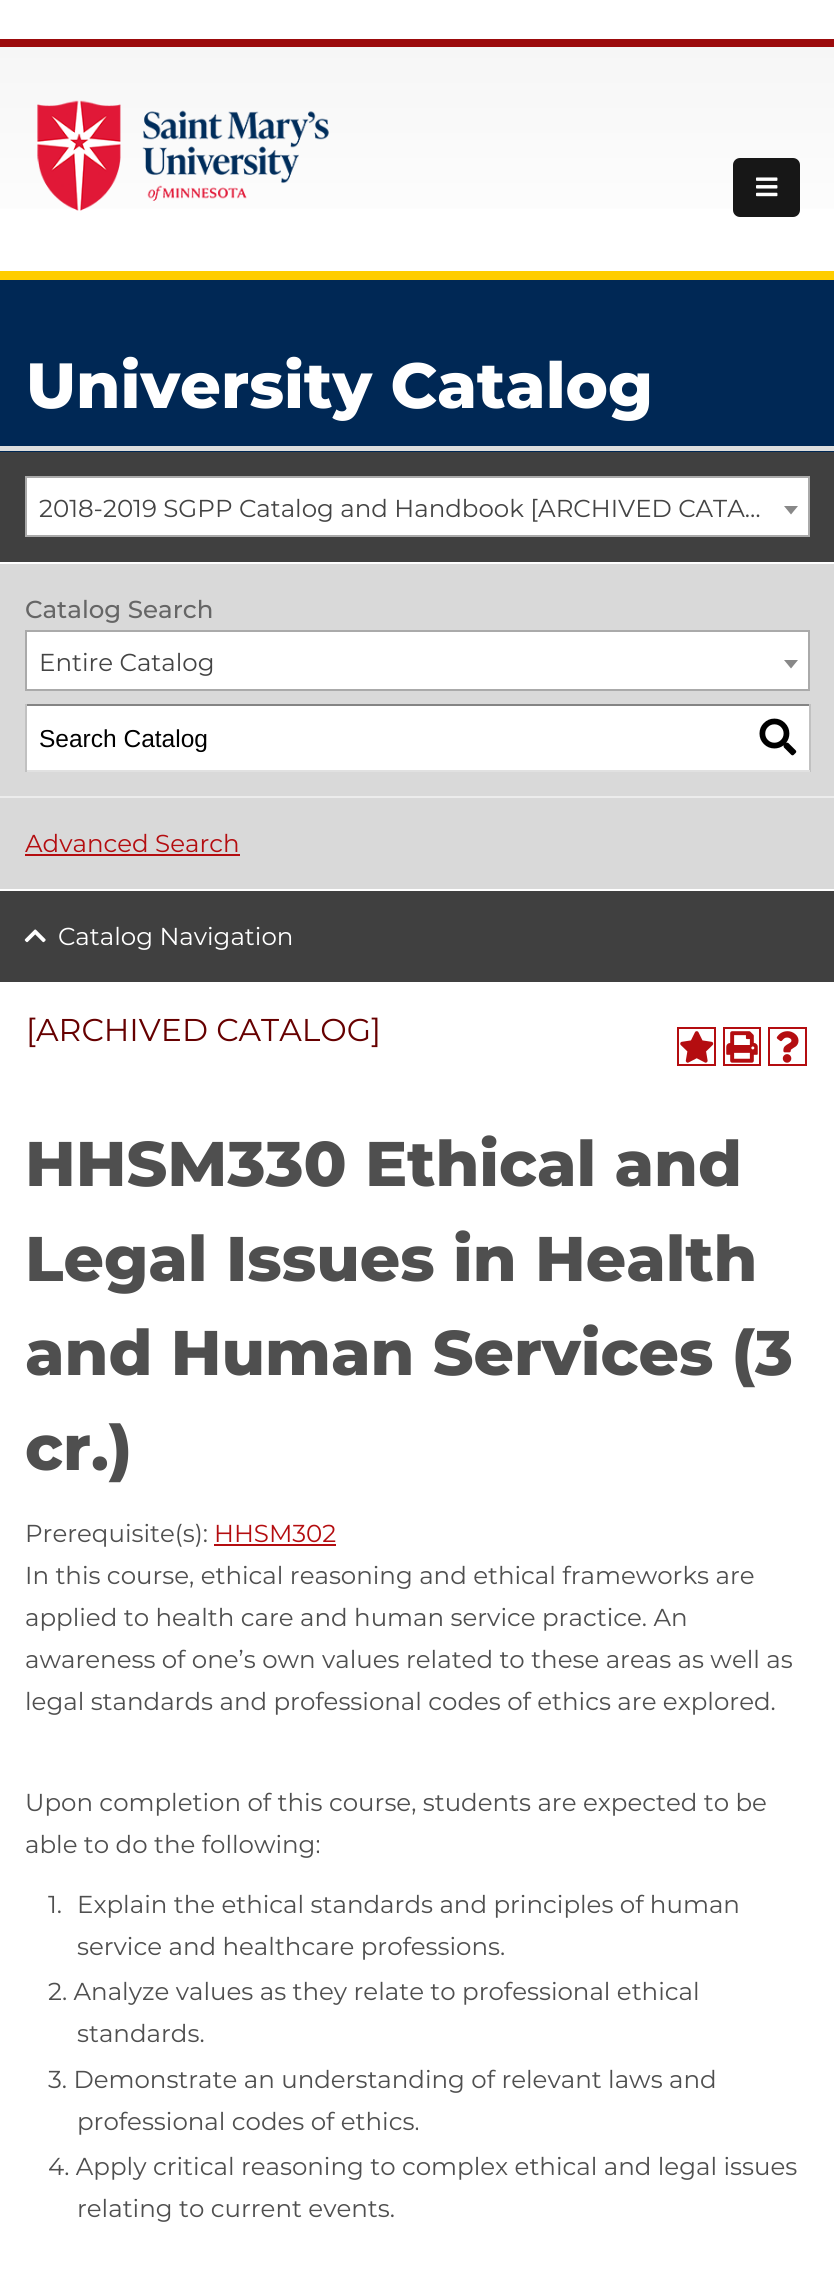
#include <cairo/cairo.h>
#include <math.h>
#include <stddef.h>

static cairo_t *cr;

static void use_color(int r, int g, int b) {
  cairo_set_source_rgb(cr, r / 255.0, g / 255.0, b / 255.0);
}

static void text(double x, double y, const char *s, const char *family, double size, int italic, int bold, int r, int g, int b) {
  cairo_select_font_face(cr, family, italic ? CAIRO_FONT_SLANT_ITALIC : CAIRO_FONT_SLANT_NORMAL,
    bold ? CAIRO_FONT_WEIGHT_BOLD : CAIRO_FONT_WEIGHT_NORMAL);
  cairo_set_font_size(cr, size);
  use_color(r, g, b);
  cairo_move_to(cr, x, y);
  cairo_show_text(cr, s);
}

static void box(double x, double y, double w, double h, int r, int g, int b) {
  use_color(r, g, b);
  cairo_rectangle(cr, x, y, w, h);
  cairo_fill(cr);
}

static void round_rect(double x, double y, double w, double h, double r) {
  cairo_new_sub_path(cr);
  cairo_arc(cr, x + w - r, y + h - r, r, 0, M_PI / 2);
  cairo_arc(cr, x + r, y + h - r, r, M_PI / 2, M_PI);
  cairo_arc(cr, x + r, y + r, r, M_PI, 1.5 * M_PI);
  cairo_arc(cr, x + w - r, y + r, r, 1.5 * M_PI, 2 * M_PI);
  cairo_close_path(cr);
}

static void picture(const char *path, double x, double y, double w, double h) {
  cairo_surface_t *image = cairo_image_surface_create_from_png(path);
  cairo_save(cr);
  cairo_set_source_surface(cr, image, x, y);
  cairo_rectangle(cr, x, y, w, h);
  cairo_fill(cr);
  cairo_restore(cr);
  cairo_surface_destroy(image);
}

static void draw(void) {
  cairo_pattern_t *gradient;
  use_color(255, 255, 255);
  cairo_paint(cr);
  gradient = cairo_pattern_create_linear(417, 47, 417, 271);
  cairo_pattern_add_color_stop_rgba(gradient, 0, 0.965, 0.965, 0.965, 1);
  cairo_pattern_add_color_stop_rgba(gradient, 1, 1, 1, 1, 1);
  cairo_set_source(cr, gradient);
  cairo_pattern_destroy(gradient);
  cairo_rectangle(cr, 0, 47, 834, 162);
  cairo_fill(cr);
  box(0, 39, 834, 8, 156, 11, 13);
  box(0, 271, 834, 9, 255, 205, 0);
  picture("img_01.png", 37, 100, 292, 111);
  use_color(23, 23, 23);
  round_rect(733, 158, 67, 59, 7);
  cairo_fill(cr);
  picture("img_02.png", 756, 177, 22, 20);
  box(0, 280, 834, 172, 0, 40, 85);
  box(0, 446, 834, 5, 221, 221, 221);
  box(0, 452, 834, 110, 64, 64, 64);
  use_color(255, 255, 255);
  cairo_rectangle(cr, 26, 477, 783, 59);
  cairo_fill_preserve(cr);
  use_color(170, 170, 170);
  cairo_stroke(cr);
  use_color(136, 136, 136);
  cairo_new_path(cr);
  cairo_move_to(cr, 784, 506);
  cairo_line_to(cr, 798, 506);
  cairo_line_to(cr, 791, 514.5);
  cairo_close_path(cr);
  cairo_fill(cr);
  box(0, 564, 834, 325, 217, 217, 217);
  use_color(255, 255, 255);
  cairo_rectangle(cr, 26, 631, 783, 59);
  cairo_fill_preserve(cr);
  use_color(170, 170, 170);
  cairo_stroke(cr);
  use_color(136, 136, 136);
  cairo_new_path(cr);
  cairo_move_to(cr, 784, 660);
  cairo_line_to(cr, 798, 660);
  cairo_line_to(cr, 791, 668.5);
  cairo_close_path(cr);
  cairo_fill(cr);
  box(27, 706, 782, 64, 255, 255, 255);
  box(25, 704, 785, 2, 132, 132, 132);
  box(809, 704, 2, 68, 193, 193, 193);
  box(25, 770, 785, 2, 225, 225, 225);
  box(25, 704, 2, 68, 193, 193, 193);
  picture("img_03.png", 759, 718, 38, 38);
  box(0, 796, 834, 2, 236, 236, 236);
  box(25, 854, 215, 2, 180, 13, 16);
  box(0, 891, 834, 91, 64, 64, 64);
  picture("img_04.png", 24, 929, 22, 14);
  cairo_rectangle(cr, 678, 1028, 37, 37);
  use_color(180, 13, 16);
  cairo_stroke(cr);
  picture("img_05.png", 680, 1031, 34, 32);
  cairo_rectangle(cr, 724, 1028, 36, 37);
  cairo_stroke(cr);
  picture("img_06.png", 726, 1031, 32, 32);
  cairo_rectangle(cr, 769, 1028, 37, 37);
  cairo_stroke(cr);
  picture("img_07.png", 776, 1031, 23, 32);
  box(214, 1544, 122, 2, 180, 13, 16);
  text(26, 408, "University Catalog", "Montserrat ExtraBold", 63.75, 0, 0, 255, 255, 255);
  text(39, 517, "2018-2019 SGPP Catalog and Handbook [ARCHIVED CATA…", "Montserrat", 24.5, 0, 0, 68, 68, 68);
  text(25, 618, "Catalog Search", "Montserrat Medium", 24.5, 0, 0, 102, 102, 102);
  text(39, 671, "Entire Catalog", "Montserrat", 24.5, 0, 0, 68, 68, 68);
  text(39, 747, "Search Catalog", "Liberation Sans", 24.5, 0, 0, 0, 0, 0);
  text(25, 852, "Advanced Search", "Montserrat", 24.5, 0, 0, 180, 13, 16);
  text(58, 945, "Catalog Navigation", "Montserrat", 24.5, 0, 0, 255, 255, 255);
  text(26, 1041, "[ARCHIVED CATALOG]", "Montserrat", 31.5, 0, 0, 102, 0, 0);
  text(25, 1186, "HHSM330 Ethical and", "Montserrat ExtraBold", 63, 0, 0, 79, 79, 79);
  text(25, 1281, "Legal Issues in Health", "Montserrat ExtraBold", 63, 0, 0, 79, 79, 79);
  text(25, 1375, "and Human Services (3", "Montserrat ExtraBold", 63, 0, 0, 79, 79, 79);
  text(25, 1470, "cr.)", "Montserrat ExtraBold", 63, 0, 0, 79, 79, 79);
  text(25, 1542, "Prerequisite(s):", "Montserrat", 24.5, 0, 0, 79, 79, 79);
  text(214, 1542, "HHSM302", "Montserrat", 24.5, 0, 0, 180, 13, 16);
  text(25, 1584, "In this course, ethical reasoning and ethical frameworks are", "Montserrat", 24.5, 0, 0, 79, 79, 79);
  text(25, 1626, "applied to health care and human service practice. An", "Montserrat", 24.5, 0, 0, 79, 79, 79);
  text(25, 1668, "awareness of one’s own values related to these areas as well as", "Montserrat", 24.5, 0, 0, 79, 79, 79);
  text(25, 1710, "legal standards and professional codes of ethics are explored.", "Montserrat", 24.5, 0, 0, 79, 79, 79);
  text(25, 1811, "Upon completion of this course, students are expected to be", "Montserrat", 24.5, 0, 0, 79, 79, 79);
  text(25, 1853, "able to do the following:", "Montserrat", 24.5, 0, 0, 79, 79, 79);
  text(48, 1913, "1.", "Montserrat", 24.5, 0, 0, 79, 79, 79);
  text(77, 1913, "Explain the ethical standards and principles of human", "Montserrat", 24.5, 0, 0, 79, 79, 79);
  text(77, 1955, "service and healthcare professions.", "Montserrat", 24.5, 0, 0, 79, 79, 79);
  text(48, 2000, "2. Analyze values as they relate to professional ethical", "Montserrat", 24.5, 0, 0, 79, 79, 79);
  text(77, 2042, "standards.", "Montserrat", 24.5, 0, 0, 79, 79, 79);
  text(48, 2088, "3. Demonstrate an understanding of relevant laws and", "Montserrat", 24.5, 0, 0, 79, 79, 79);
  text(77, 2130, "professional codes of ethics.", "Montserrat", 24.5, 0, 0, 79, 79, 79);
  text(48, 2175, "4. Apply critical reasoning to complex ethical and legal issues", "Montserrat", 24.5, 0, 0, 79, 79, 79);
  text(77, 2217, "relating to current events.", "Montserrat", 24.5, 0, 0, 79, 79, 79);
}

int main(void) {
  cairo_surface_t *surface = cairo_image_surface_create(CAIRO_FORMAT_RGB24, 834, 2275);
  cr = cairo_create(surface);
  cairo_font_options_t *options = cairo_font_options_create();
  cairo_font_options_set_hint_metrics(options, CAIRO_HINT_METRICS_OFF);
  cairo_font_options_set_hint_style(options, CAIRO_HINT_STYLE_NONE);
  cairo_set_font_options(cr, options);
  cairo_set_miter_limit(cr, 4);
  draw();
  cairo_surface_write_to_png(surface, "out.png");
  cairo_font_options_destroy(options);
  cairo_destroy(cr);
  cairo_surface_destroy(surface);
  return 0;
}
